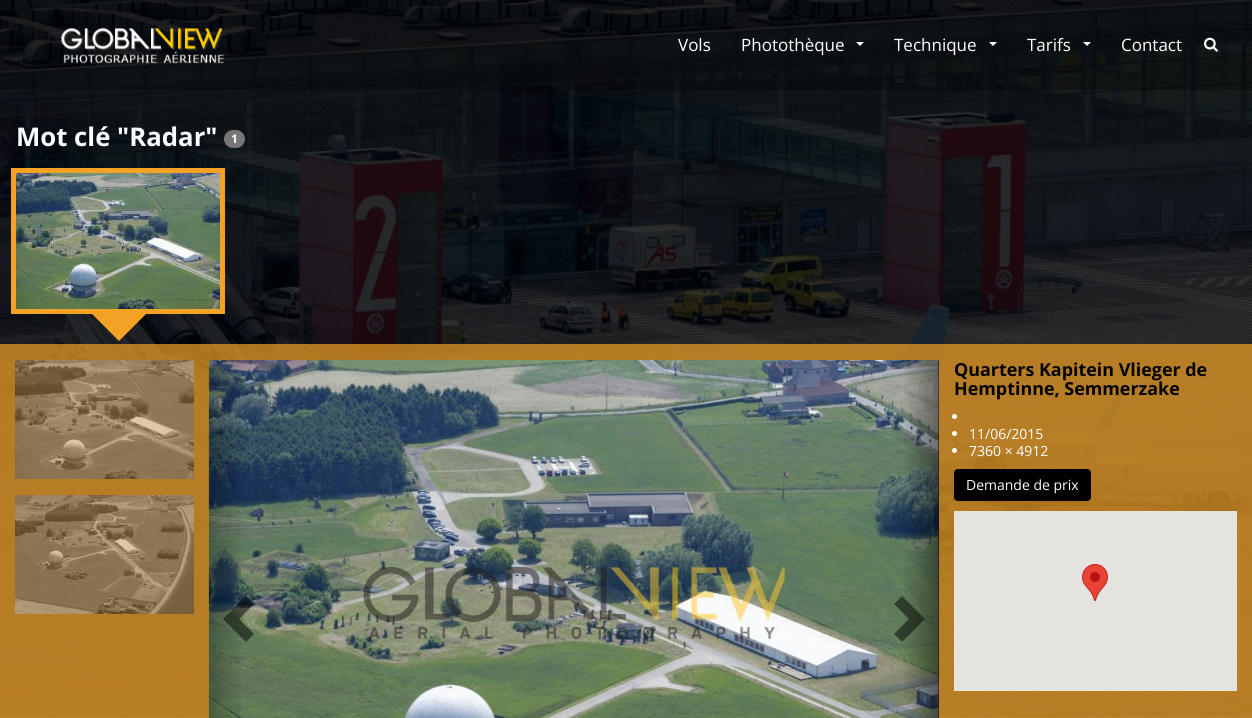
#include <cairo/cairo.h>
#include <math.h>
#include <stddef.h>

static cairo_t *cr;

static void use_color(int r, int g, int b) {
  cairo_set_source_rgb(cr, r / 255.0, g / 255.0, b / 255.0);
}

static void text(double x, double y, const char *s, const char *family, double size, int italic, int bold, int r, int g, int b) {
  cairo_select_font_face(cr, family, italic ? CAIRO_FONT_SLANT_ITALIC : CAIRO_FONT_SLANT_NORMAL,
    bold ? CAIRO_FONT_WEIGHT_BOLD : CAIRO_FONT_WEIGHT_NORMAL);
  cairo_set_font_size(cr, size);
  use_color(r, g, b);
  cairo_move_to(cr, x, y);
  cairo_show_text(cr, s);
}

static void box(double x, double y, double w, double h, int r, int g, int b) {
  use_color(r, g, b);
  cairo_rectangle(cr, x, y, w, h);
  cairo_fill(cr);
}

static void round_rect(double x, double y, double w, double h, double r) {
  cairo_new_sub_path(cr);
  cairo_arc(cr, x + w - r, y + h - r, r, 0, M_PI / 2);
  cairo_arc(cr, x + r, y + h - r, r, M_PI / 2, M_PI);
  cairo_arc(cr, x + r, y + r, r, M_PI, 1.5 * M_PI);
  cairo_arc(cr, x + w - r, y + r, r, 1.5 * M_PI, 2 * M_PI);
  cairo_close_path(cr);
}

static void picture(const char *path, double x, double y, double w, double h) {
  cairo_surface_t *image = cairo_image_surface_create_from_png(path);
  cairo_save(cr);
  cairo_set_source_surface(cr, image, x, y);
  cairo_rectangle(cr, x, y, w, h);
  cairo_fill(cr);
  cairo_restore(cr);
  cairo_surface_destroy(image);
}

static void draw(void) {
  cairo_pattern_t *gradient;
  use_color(255, 255, 255);
  cairo_paint(cr);
  picture("img_01.png", 0, 0, 1252, 718);
  picture("img_02.png", 0, 0, 1252, 718);
  cairo_set_source_rgba(cr, 0, 0, 0, 0.3);
  cairo_rectangle(cr, 0, 0, 1252, 90);
  cairo_fill(cr);
  picture("img_03.png", 61, 27, 163, 37);
  use_color(255, 255, 255);
  cairo_new_path(cr);
  cairo_move_to(cr, 856, 42);
  cairo_line_to(cr, 864, 42);
  cairo_line_to(cr, 860, 46);
  cairo_close_path(cr);
  cairo_fill(cr);
  cairo_new_path(cr);
  cairo_move_to(cr, 989, 42);
  cairo_line_to(cr, 997, 42);
  cairo_line_to(cr, 993, 46);
  cairo_close_path(cr);
  cairo_fill(cr);
  cairo_new_path(cr);
  cairo_move_to(cr, 1083, 42);
  cairo_line_to(cr, 1091, 42);
  cairo_line_to(cr, 1087, 46);
  cairo_close_path(cr);
  cairo_fill(cr);
  picture("img_04.png", 1204, 37, 14, 15);
  use_color(119, 119, 119);
  round_rect(224, 130, 21, 18, 9);
  cairo_fill(cr);
  cairo_rectangle(cr, 13.5, 170.5, 209, 141);
  use_color(243, 162, 36);
  cairo_set_line_width(cr, 5);
  cairo_stroke(cr);
  picture("img_05.png", 16, 173, 204, 136);
  cairo_new_path(cr);
  cairo_move_to(cr, 91, 313);
  cairo_line_to(cr, 147, 313);
  cairo_line_to(cr, 119, 341);
  cairo_close_path(cr);
  cairo_fill(cr);
  cairo_set_source_rgba(cr, 0.953, 0.635, 0.141, 0.7);
  cairo_rectangle(cr, 0, 344, 1252, 374);
  cairo_fill(cr);
  picture("img_06.png", 15, 360, 179, 119);
  picture("img_07.png", 15, 495, 179, 119);
  picture("img_08.png", 208, 360, 731, 358);
  gradient = cairo_pattern_create_linear(209, 604, 245, 604);
  cairo_pattern_add_color_stop_rgba(gradient, 0, 0, 0, 0, 0.25);
  cairo_pattern_add_color_stop_rgba(gradient, 1, 0, 0, 0, 0);
  cairo_set_source(cr, gradient);
  cairo_pattern_destroy(gradient);
  cairo_rectangle(cr, 209, 360, 33, 358);
  cairo_fill(cr);
  cairo_set_source_rgba(cr, 0, 0, 0, 0.5);
  cairo_new_path(cr);
  cairo_move_to(cr, 254, 604);
  cairo_line_to(cr, 239, 619);
  cairo_line_to(cr, 254, 634);
  cairo_line_to(cr, 246, 642);
  cairo_line_to(cr, 223, 619);
  cairo_line_to(cr, 246, 596);
  cairo_close_path(cr);
  cairo_fill(cr);
  gradient = cairo_pattern_create_linear(902, 604, 939, 604);
  cairo_pattern_add_color_stop_rgba(gradient, 0, 0, 0, 0, 0);
  cairo_pattern_add_color_stop_rgba(gradient, 1, 0, 0, 0, 0.4);
  cairo_set_source(cr, gradient);
  cairo_pattern_destroy(gradient);
  cairo_rectangle(cr, 904, 360, 35, 358);
  cairo_fill(cr);
  cairo_set_source_rgba(cr, 0, 0, 0, 0.5);
  cairo_new_path(cr);
  cairo_move_to(cr, 925, 619);
  cairo_line_to(cr, 902, 642);
  cairo_line_to(cr, 894, 634);
  cairo_line_to(cr, 909, 619);
  cairo_line_to(cr, 894, 604);
  cairo_line_to(cr, 902, 596);
  cairo_close_path(cr);
  cairo_fill(cr);
  use_color(255, 255, 255);
  cairo_arc(cr, 954.5, 416.5, 2.5, 0, 2 * M_PI);
  cairo_fill(cr);
  cairo_arc(cr, 954.5, 433.5, 2.5, 0, 2 * M_PI);
  cairo_fill(cr);
  cairo_arc(cr, 954.5, 450.5, 2.5, 0, 2 * M_PI);
  cairo_fill(cr);
  use_color(0, 0, 0);
  round_rect(954, 469, 137, 32, 4);
  cairo_fill(cr);
  box(954, 511, 283, 180, 229, 227, 223);
  picture("img_09.png", 1082, 564, 26, 37);
  text(678, 51, "Vols", "Open Sans", 17, 0, 0, 255, 255, 255);
  text(741, 51, "Photothèque", "Open Sans", 17, 0, 0, 255, 255, 255);
  text(894, 51, "Technique", "Open Sans", 17, 0, 0, 255, 255, 255);
  text(1027, 51, "Tarifs", "Open Sans", 17, 0, 0, 255, 255, 255);
  text(1121, 51, "Contact", "Open Sans", 17, 0, 0, 255, 255, 255);
  text(16, 146, "Mot clé \"Radar\"", "Open Sans", 25.75, 0, 1, 255, 255, 255);
  text(231, 143, "1", "Open Sans", 12, 0, 1, 255, 255, 255);
  text(954, 376, "Quarters Kapitein Vlieger de", "Open Sans", 17.9, 0, 1, 0, 0, 0);
  text(954, 395, "Hemptinne, Semmerzake", "Open Sans", 17.9, 0, 1, 0, 0, 0);
  text(969, 439, "11/06/2015", "Open Sans", 14, 0, 0, 255, 255, 255);
  text(969, 456, "7360 × 4912", "Open Sans", 14, 0, 0, 255, 255, 255);
  text(966, 490, "Demande de prix", "Open Sans", 14, 0, 0, 255, 255, 255);
}

int main(void) {
  cairo_surface_t *surface = cairo_image_surface_create(CAIRO_FORMAT_RGB24, 1252, 718);
  cr = cairo_create(surface);
  cairo_font_options_t *options = cairo_font_options_create();
  cairo_font_options_set_hint_metrics(options, CAIRO_HINT_METRICS_OFF);
  cairo_font_options_set_hint_style(options, CAIRO_HINT_STYLE_NONE);
  cairo_set_font_options(cr, options);
  cairo_set_miter_limit(cr, 4);
  draw();
  cairo_surface_write_to_png(surface, "out.png");
  cairo_font_options_destroy(options);
  cairo_destroy(cr);
  cairo_surface_destroy(surface);
  return 0;
}
